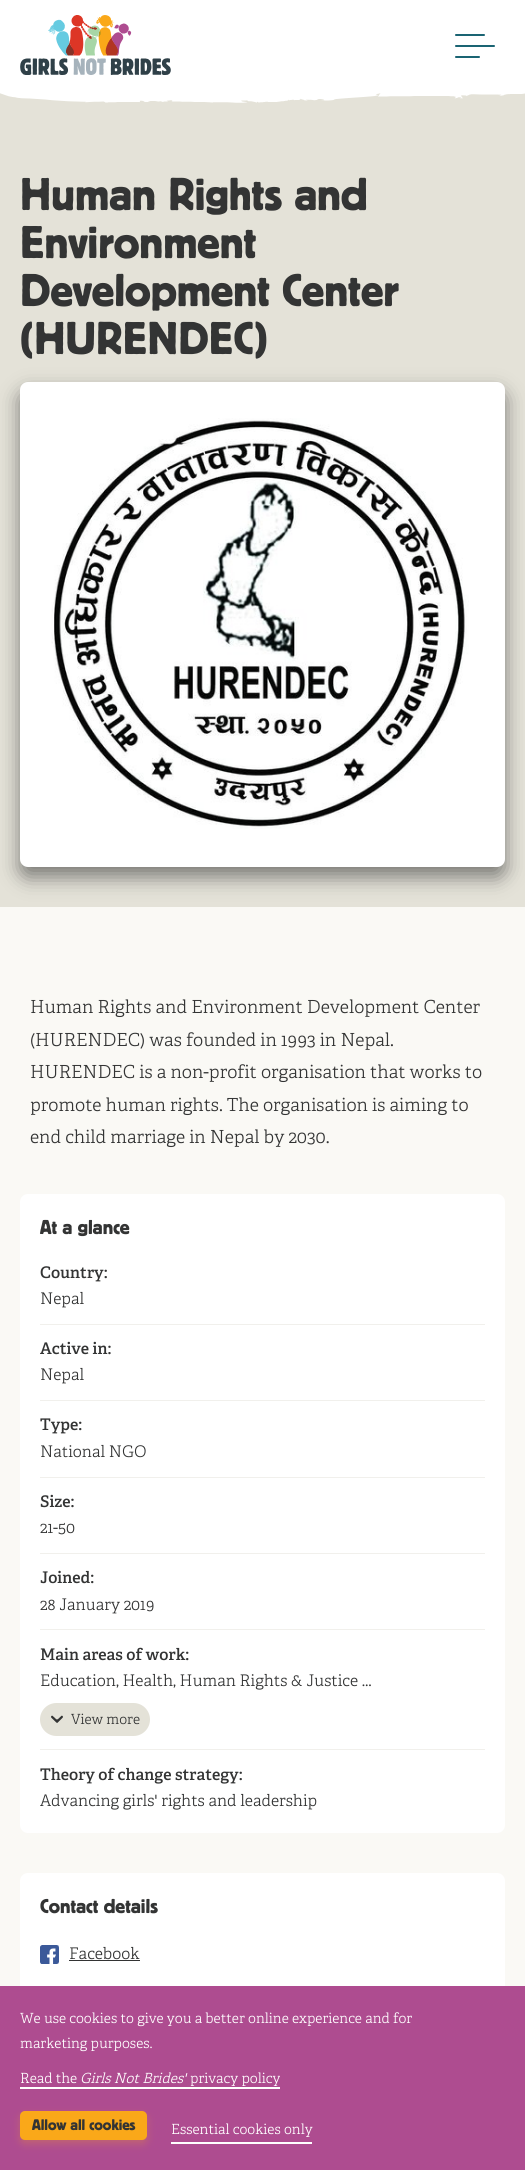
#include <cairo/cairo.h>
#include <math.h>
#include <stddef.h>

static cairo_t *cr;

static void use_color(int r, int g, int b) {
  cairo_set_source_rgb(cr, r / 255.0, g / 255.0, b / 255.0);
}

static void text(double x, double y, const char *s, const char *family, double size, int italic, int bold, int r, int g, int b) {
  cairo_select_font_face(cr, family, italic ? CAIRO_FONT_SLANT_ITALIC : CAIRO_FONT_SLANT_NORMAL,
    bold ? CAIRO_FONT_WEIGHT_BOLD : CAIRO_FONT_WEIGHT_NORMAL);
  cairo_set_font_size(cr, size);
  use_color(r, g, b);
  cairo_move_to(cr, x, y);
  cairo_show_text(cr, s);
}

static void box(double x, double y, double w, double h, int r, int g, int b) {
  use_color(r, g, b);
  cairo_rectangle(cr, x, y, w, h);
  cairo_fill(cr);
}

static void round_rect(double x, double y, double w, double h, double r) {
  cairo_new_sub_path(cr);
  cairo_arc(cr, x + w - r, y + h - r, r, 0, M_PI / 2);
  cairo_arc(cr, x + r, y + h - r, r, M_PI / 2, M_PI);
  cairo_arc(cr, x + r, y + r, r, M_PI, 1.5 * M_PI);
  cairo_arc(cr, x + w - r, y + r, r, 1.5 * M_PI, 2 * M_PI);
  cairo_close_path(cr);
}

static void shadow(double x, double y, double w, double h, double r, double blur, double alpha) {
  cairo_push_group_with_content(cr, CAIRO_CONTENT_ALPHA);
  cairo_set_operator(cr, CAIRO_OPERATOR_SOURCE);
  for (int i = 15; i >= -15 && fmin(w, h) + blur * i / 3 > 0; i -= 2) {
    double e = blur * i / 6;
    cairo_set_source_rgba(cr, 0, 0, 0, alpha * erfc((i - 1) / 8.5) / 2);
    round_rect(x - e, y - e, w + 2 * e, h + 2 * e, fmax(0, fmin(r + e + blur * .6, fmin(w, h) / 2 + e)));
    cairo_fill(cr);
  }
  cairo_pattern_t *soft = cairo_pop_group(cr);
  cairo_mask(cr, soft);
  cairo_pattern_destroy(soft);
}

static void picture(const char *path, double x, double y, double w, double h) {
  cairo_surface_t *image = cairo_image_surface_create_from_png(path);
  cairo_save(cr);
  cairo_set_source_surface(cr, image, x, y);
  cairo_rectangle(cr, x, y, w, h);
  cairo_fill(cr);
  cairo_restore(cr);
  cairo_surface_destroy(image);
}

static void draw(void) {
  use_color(250, 249, 245);
  cairo_paint(cr);
  box(0, 0, 525, 90, 255, 255, 255);
  picture("img_01.png", 20, 15, 151, 60);
  use_color(26, 100, 115);
  round_rect(455, 34, 30, 2, 1);
  cairo_fill(cr);
  round_rect(455, 45, 40, 2, 1);
  cairo_fill(cr);
  round_rect(455, 56, 25, 2, 1);
  cairo_fill(cr);
  box(0, 93, 525, 814, 228, 226, 216);
  picture("img_02.png", 0, 90, 525, 13);
  use_color(51, 52, 52);
  shadow(20, 392, 485, 485, 8, 10, 0.6);
  use_color(255, 255, 255);
  round_rect(20, 382, 485, 485, 8);
  cairo_fill(cr);
  picture("img_03.png", 51, 418, 418, 411);
  round_rect(20, 1194, 485, 639, 8);
  cairo_fill(cr);
  box(40, 1324, 445, 1, 241, 240, 236);
  box(40, 1400, 445, 1, 241, 240, 236);
  box(40, 1477, 445, 1, 241, 240, 236);
  box(40, 1553, 445, 1, 241, 240, 236);
  box(40, 1629, 445, 1, 241, 240, 236);
  box(40, 1749, 445, 1, 241, 240, 236);
  use_color(228, 226, 216);
  round_rect(40, 1703, 110, 33, 16.5);
  cairo_fill(cr);
  picture("img_04.png", 51, 1715, 12, 8);
  use_color(255, 255, 255);
  round_rect(20, 1873, 485, 126, 8);
  cairo_fill(cr);
  picture("img_05.png", 40, 1945, 19, 19);
  box(69, 1960, 71, 1, 51, 52, 52);
  box(0, 1986, 525, 184, 174, 76, 144);
  box(20, 2087, 260, 2, 255, 255, 255);
  use_color(250, 168, 25);
  shadow(20, 2115, 127, 29, 5, 4, 0.25);
  use_color(250, 168, 25);
  round_rect(20, 2111, 127, 29, 5);
  cairo_fill(cr);
  box(171, 2142, 141, 2, 255, 255, 255);
  text(20, 210, "Human Rights and", "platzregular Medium", 48, 0, 0, 51, 52, 52);
  text(20, 258, "Environment", "platzregular Medium", 48, 0, 0, 51, 52, 52);
  text(20, 306, "Development Center", "platzregular Medium", 48, 0, 0, 51, 52, 52);
  text(20, 354, "(HURENDEC)", "platzregular Medium", 48, 0, 0, 51, 52, 52);
  text(30, 1013, "Human Rights and Environment Development Center", "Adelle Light", 18, 0, 0, 51, 52, 52);
  text(30, 1046, "(HURENDEC) was founded in 1993 in Nepal.", "Adelle Light", 18, 0, 0, 51, 52, 52);
  text(30, 1078, "HURENDEC is a non-profit organisation that works to", "Adelle Light", 18, 0, 0, 51, 52, 52);
  text(30, 1111, "promote human rights. The organisation is aiming to", "Adelle Light", 18, 0, 0, 51, 52, 52);
  text(30, 1143, "end child marriage in Nepal by 2030.", "Adelle Light", 18, 0, 0, 51, 52, 52);
  text(40, 1234, "At a glance", "platzregular Medium", 21, 0, 0, 51, 52, 52);
  text(40, 1278, "Country:", "Adelle SemiBold", 16, 0, 0, 51, 52, 52);
  text(40, 1304, "Nepal", "Adelle Light", 16, 0, 0, 51, 52, 52);
  text(40, 1354, "Active in:", "Adelle SemiBold", 16, 0, 0, 51, 52, 52);
  text(40, 1380, "Nepal", "Adelle Light", 16, 0, 0, 51, 52, 52);
  text(40, 1430, "Type:", "Adelle SemiBold", 16, 0, 0, 51, 52, 52);
  text(40, 1457, "National NGO", "Adelle Light", 16, 0, 0, 51, 52, 52);
  text(40, 1507, "Size:", "Adelle SemiBold", 16, 0, 0, 51, 52, 52);
  text(40, 1533, "21-50", "Adelle Light", 16, 0, 0, 51, 52, 52);
  text(40, 1583, "Joined:", "Adelle SemiBold", 16, 0, 0, 51, 52, 52);
  text(40, 1610, "28 January 2019", "Adelle Light", 16, 0, 0, 51, 52, 52);
  text(40, 1660, "Main areas of work:", "Adelle SemiBold", 16, 0, 0, 51, 52, 52);
  text(40, 1686, "Education, Health, Human Rights & Justice ...", "Adelle Light", 16, 0, 0, 51, 52, 52);
  text(71, 1724, "View more", "Adelle Light", 14, 0, 0, 51, 52, 52);
  text(40, 1780, "Theory of change strategy:", "Adelle SemiBold", 16, 0, 0, 51, 52, 52);
  text(40, 1806, "Advancing girls' rights and leadership", "Adelle Light", 16, 0, 0, 51, 52, 52);
  text(40, 1913, "Contact details", "platzregular Medium", 21, 0, 0, 51, 52, 52);
  text(69, 1959, "Facebook", "Adelle Light", 16, 0, 0, 51, 52, 52);
  text(20, 2023, "We use cookies to give you a better online experience and for", "Adelle Light", 14, 0, 0, 255, 255, 255);
  text(20, 2048, "marketing purposes.", "Adelle Light", 14, 0, 0, 255, 255, 255);
  text(20, 2083, "Read the", "Adelle Light", 14, 0, 0, 255, 255, 255);
  text(80, 2083, "Girls Not Brides'", "Adelle Light", 14, 1, 0, 255, 255, 255);
  text(190, 2083, "privacy policy", "Adelle Light", 14, 0, 0, 255, 255, 255);
  text(32, 2130, "Allow all cookies", "platzregular Medium", 16, 0, 0, 51, 52, 52);
  text(171, 2134, "Essential cookies only", "Adelle Light", 14, 0, 0, 255, 255, 255);
}

int main(void) {
  cairo_surface_t *surface = cairo_image_surface_create(CAIRO_FORMAT_RGB24, 525, 2170);
  cr = cairo_create(surface);
  cairo_font_options_t *options = cairo_font_options_create();
  cairo_font_options_set_hint_metrics(options, CAIRO_HINT_METRICS_OFF);
  cairo_font_options_set_hint_style(options, CAIRO_HINT_STYLE_NONE);
  cairo_set_font_options(cr, options);
  cairo_set_miter_limit(cr, 4);
  draw();
  cairo_surface_write_to_png(surface, "out.png");
  cairo_font_options_destroy(options);
  cairo_destroy(cr);
  cairo_surface_destroy(surface);
  return 0;
}
